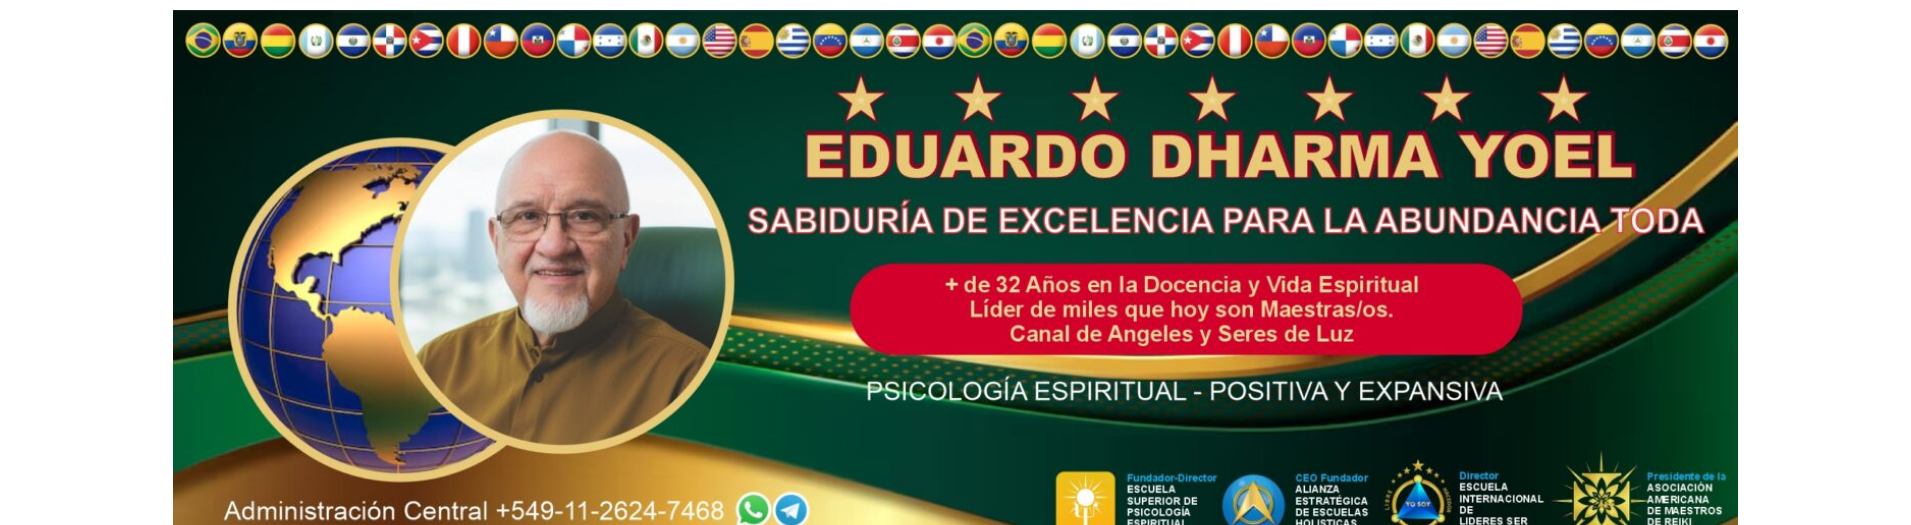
#include <cairo/cairo.h>
#include <math.h>
#include <stddef.h>

static cairo_t *cr;

static void use_color(int r, int g, int b) {
  cairo_set_source_rgb(cr, r / 255.0, g / 255.0, b / 255.0);
}

static void picture(const char *path, double x, double y, double w, double h) {
  cairo_surface_t *image = cairo_image_surface_create_from_png(path);
  cairo_save(cr);
  cairo_set_source_surface(cr, image, x, y);
  cairo_rectangle(cr, x, y, w, h);
  cairo_fill(cr);
  cairo_restore(cr);
  cairo_surface_destroy(image);
}

static void draw(void) {
  use_color(255, 255, 255);
  cairo_paint(cr);
  picture("img_01.png", 173, 10, 1565, 515);
}

int main(void) {
  cairo_surface_t *surface = cairo_image_surface_create(CAIRO_FORMAT_RGB24, 1911, 525);
  cr = cairo_create(surface);
  cairo_font_options_t *options = cairo_font_options_create();
  cairo_font_options_set_hint_metrics(options, CAIRO_HINT_METRICS_OFF);
  cairo_font_options_set_hint_style(options, CAIRO_HINT_STYLE_NONE);
  cairo_set_font_options(cr, options);
  cairo_set_miter_limit(cr, 4);
  draw();
  cairo_surface_write_to_png(surface, "out.png");
  cairo_font_options_destroy(options);
  cairo_destroy(cr);
  cairo_surface_destroy(surface);
  return 0;
}
